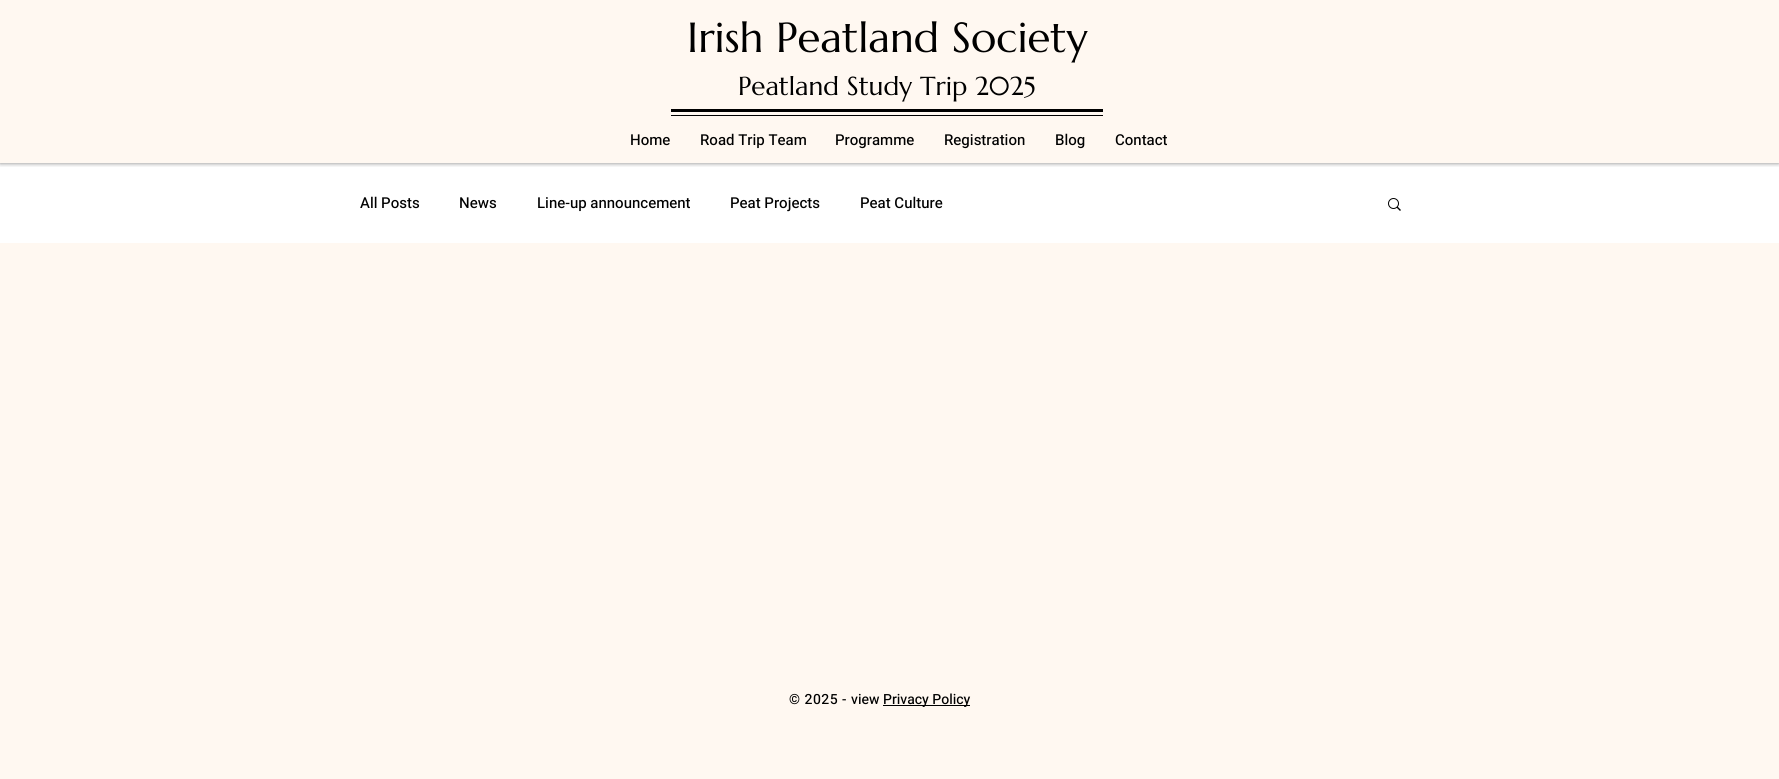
#include <cairo/cairo.h>
#include <math.h>
#include <stddef.h>

static cairo_t *cr;

static void use_color(int r, int g, int b) {
  cairo_set_source_rgb(cr, r / 255.0, g / 255.0, b / 255.0);
}

static void text(double x, double y, const char *s, const char *family, double size, int italic, int bold, int r, int g, int b) {
  cairo_select_font_face(cr, family, italic ? CAIRO_FONT_SLANT_ITALIC : CAIRO_FONT_SLANT_NORMAL,
    bold ? CAIRO_FONT_WEIGHT_BOLD : CAIRO_FONT_WEIGHT_NORMAL);
  cairo_set_font_size(cr, size);
  use_color(r, g, b);
  cairo_move_to(cr, x, y);
  cairo_show_text(cr, s);
}

static void spaced_text(double x, double y, const char *s, double letter, double word) {
  cairo_move_to(cr, x, y);
  while (*s) {
    char ch[5] = {0};
    int n = 0;
    do ch[n++] = *s++; while ((*s & 0xC0) == 0x80);
    cairo_show_text(cr, ch);
    cairo_rel_move_to(cr, letter + word * (*ch == ' '), 0);
  }
}

static void box(double x, double y, double w, double h, int r, int g, int b) {
  use_color(r, g, b);
  cairo_rectangle(cr, x, y, w, h);
  cairo_fill(cr);
}

static void round_rect(double x, double y, double w, double h, double r) {
  cairo_new_sub_path(cr);
  cairo_arc(cr, x + w - r, y + h - r, r, 0, M_PI / 2);
  cairo_arc(cr, x + r, y + h - r, r, M_PI / 2, M_PI);
  cairo_arc(cr, x + r, y + r, r, M_PI, 1.5 * M_PI);
  cairo_arc(cr, x + w - r, y + r, r, 1.5 * M_PI, 2 * M_PI);
  cairo_close_path(cr);
}

static void shadow(double x, double y, double w, double h, double r, double blur, double alpha) {
  cairo_push_group_with_content(cr, CAIRO_CONTENT_ALPHA);
  cairo_set_operator(cr, CAIRO_OPERATOR_SOURCE);
  for (int i = 15; i >= -15 && fmin(w, h) + blur * i / 3 > 0; i -= 2) {
    double e = blur * i / 6;
    cairo_set_source_rgba(cr, 0, 0, 0, alpha * erfc((i - 1) / 8.5) / 2);
    round_rect(x - e, y - e, w + 2 * e, h + 2 * e, fmax(0, fmin(r + e + blur * .6, fmin(w, h) / 2 + e)));
    cairo_fill(cr);
  }
  cairo_pattern_t *soft = cairo_pop_group(cr);
  cairo_mask(cr, soft);
  cairo_pattern_destroy(soft);
}

static void picture(const char *path, double x, double y, double w, double h) {
  cairo_surface_t *image = cairo_image_surface_create_from_png(path);
  cairo_save(cr);
  cairo_set_source_surface(cr, image, x, y);
  cairo_rectangle(cr, x, y, w, h);
  cairo_fill(cr);
  cairo_restore(cr);
  cairo_surface_destroy(image);
}

static void draw(void) {
  use_color(255, 248, 241);
  cairo_paint(cr);
  box(0, 163, 1779, 80, 255, 255, 255);
  cairo_save(cr);
  cairo_rectangle(cr, 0, 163, 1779, 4);
  cairo_clip(cr);
  use_color(0, 0, 0);
  shadow(0, 0, 1779, 163, 0, 2.5, 0.5);
  cairo_restore(cr);
  box(671, 109, 432, 3, 0, 0, 0);
  box(671, 115, 432, 1, 0, 0, 0);
  picture("img_01.png", 1388, 198, 13, 13);
  box(883, 705, 87, 1, 0, 0, 0);
  text(687, 52, "Irish Peatland Society", "Marcellus", 42, 0, 0, 0, 0, 0);
  text(738, 95, "Peatland Study Trip 2025", "Marcellus", 26, 0, 0, 0, 0, 0);
  text(630, 145, "Home", "Heebo Medium", 15, 0, 0, 0, 0, 0);
  text(700, 145, "Road Trip Team", "Heebo Medium", 15, 0, 0, 0, 0, 0);
  text(835, 145, "Programme", "Heebo Medium", 15, 0, 0, 0, 0, 0);
  text(944, 145, "Registration", "Heebo Medium", 15, 0, 0, 0, 0, 0);
  text(1055, 145, "Blog", "Heebo Medium", 15, 0, 0, 0, 0, 0);
  text(1115, 145, "Contact", "Heebo Medium", 15, 0, 0, 0, 0, 0);
  text(360, 208, "All Posts", "Heebo Medium", 15, 0, 0, 0, 0, 0);
  text(459, 208, "News", "Heebo Medium", 15, 0, 0, 0, 0, 0);
  text(537, 208, "Line-up announcement", "Heebo Medium", 15, 0, 0, 0, 0, 0);
  text(730, 208, "Peat Projects", "Heebo Medium", 15, 0, 0, 0, 0, 0);
  text(860, 208, "Peat Culture", "Heebo Medium", 15, 0, 0, 0, 0, 0);
  cairo_set_font_size(cr, 14);
  spaced_text(789, 704, "© 2025 -", 0.5, 0);
  text(851, 704, "view", "Heebo Medium", 14, 0, 0, 0, 0, 0);
  text(883, 704, "Privacy Policy", "Heebo Medium", 14, 0, 0, 0, 0, 0);
}

int main(void) {
  cairo_surface_t *surface = cairo_image_surface_create(CAIRO_FORMAT_RGB24, 1779, 779);
  cr = cairo_create(surface);
  cairo_font_options_t *options = cairo_font_options_create();
  cairo_font_options_set_hint_metrics(options, CAIRO_HINT_METRICS_OFF);
  cairo_font_options_set_hint_style(options, CAIRO_HINT_STYLE_NONE);
  cairo_set_font_options(cr, options);
  cairo_set_miter_limit(cr, 4);
  draw();
  cairo_surface_write_to_png(surface, "out.png");
  cairo_font_options_destroy(options);
  cairo_destroy(cr);
  cairo_surface_destroy(surface);
  return 0;
}
